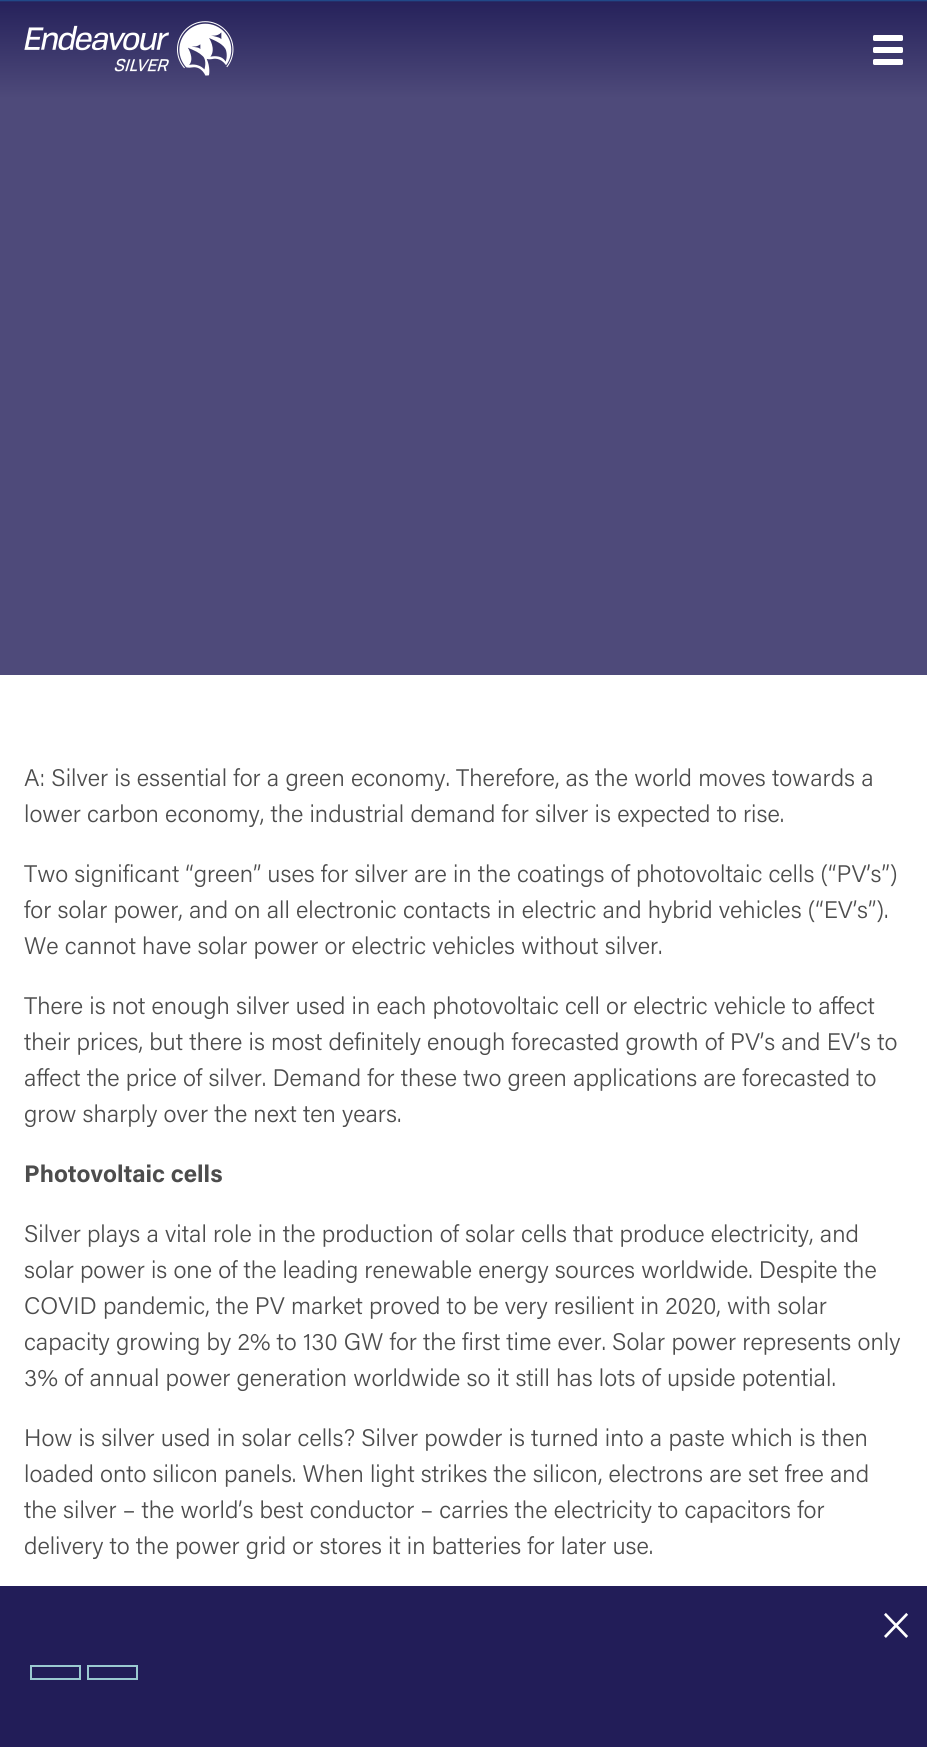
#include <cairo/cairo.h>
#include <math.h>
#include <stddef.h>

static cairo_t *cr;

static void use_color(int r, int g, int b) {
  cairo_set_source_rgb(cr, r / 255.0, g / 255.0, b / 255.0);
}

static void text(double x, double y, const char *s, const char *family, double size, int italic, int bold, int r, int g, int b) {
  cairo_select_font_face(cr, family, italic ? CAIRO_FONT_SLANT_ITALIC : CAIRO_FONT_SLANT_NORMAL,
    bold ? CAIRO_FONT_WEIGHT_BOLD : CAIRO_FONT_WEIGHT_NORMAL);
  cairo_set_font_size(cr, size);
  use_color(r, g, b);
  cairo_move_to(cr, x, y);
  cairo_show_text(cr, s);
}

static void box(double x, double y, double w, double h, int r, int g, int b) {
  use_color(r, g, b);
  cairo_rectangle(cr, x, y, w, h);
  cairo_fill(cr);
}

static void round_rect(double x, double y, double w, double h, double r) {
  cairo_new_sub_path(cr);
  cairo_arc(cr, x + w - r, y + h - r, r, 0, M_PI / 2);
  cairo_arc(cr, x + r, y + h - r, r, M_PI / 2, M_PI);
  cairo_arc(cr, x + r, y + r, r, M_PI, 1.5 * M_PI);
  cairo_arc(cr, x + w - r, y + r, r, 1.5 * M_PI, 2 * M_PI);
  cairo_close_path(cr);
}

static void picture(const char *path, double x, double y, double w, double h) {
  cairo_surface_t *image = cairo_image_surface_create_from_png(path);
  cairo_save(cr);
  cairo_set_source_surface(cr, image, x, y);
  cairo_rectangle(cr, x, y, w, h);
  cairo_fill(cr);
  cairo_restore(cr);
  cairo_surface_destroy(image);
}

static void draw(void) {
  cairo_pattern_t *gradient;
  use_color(255, 255, 255);
  cairo_paint(cr);
  gradient = cairo_pattern_create_linear(464, 0, 464, 98);
  cairo_pattern_add_color_stop_rgba(gradient, 0, 0.125, 0.337, 0.592, 1);
  cairo_pattern_add_color_stop_rgba(gradient, 0.02, 0.149, 0.133, 0.357, 1);
  cairo_pattern_add_color_stop_rgba(gradient, 1, 0.306, 0.29, 0.478, 1);
  cairo_set_source(cr, gradient);
  cairo_pattern_destroy(gradient);
  cairo_rectangle(cr, 0, 0, 927, 98);
  cairo_fill(cr);
  picture("img_01.png", 24, 21, 210, 55);
  use_color(255, 255, 255);
  round_rect(873, 35, 30, 6, 1.5);
  cairo_fill(cr);
  round_rect(873, 47, 30, 6, 1.5);
  cairo_fill(cr);
  round_rect(873, 59, 30, 6, 1.5);
  cairo_fill(cr);
  box(0, 98, 927, 577, 78, 74, 122);
  box(0, 1586, 927, 161, 34, 29, 88);
  cairo_rectangle(cr, 31, 1666, 49, 13);
  use_color(155, 202, 209);
  cairo_stroke(cr);
  cairo_rectangle(cr, 88, 1666, 49, 13);
  cairo_stroke(cr);
  text(24, 786, "A: Silver is essential for a green economy. Therefore, as the world moves towards a", "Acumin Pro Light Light", 24, 0, 0, 77, 77, 77);
  text(24, 822, "lower carbon economy, the industrial demand for silver is expected to rise.", "Acumin Pro Light Light", 24, 0, 0, 77, 77, 77);
  text(24, 882, "Two significant “green” uses for silver are in the coatings of photovoltaic cells (“PV’s”)", "Acumin Pro Light Light", 24, 0, 0, 77, 77, 77);
  text(24, 918, "for solar power, and on all electronic contacts in electric and hybrid vehicles (“EV’s”).", "Acumin Pro Light Light", 24, 0, 0, 77, 77, 77);
  text(24, 954, "We cannot have solar power or electric vehicles without silver.", "Acumin Pro Light Light", 24, 0, 0, 77, 77, 77);
  text(24, 1014, "There is not enough silver used in each photovoltaic cell or electric vehicle to affect", "Acumin Pro Light Light", 24, 0, 0, 77, 77, 77);
  text(24, 1050, "their prices, but there is most definitely enough forecasted growth of PV’s and EV’s to", "Acumin Pro Light Light", 24, 0, 0, 77, 77, 77);
  text(24, 1086, "affect the price of silver. Demand for these two green applications are forecasted to", "Acumin Pro Light Light", 24, 0, 0, 77, 77, 77);
  text(24, 1122, "grow sharply over the next ten years.", "Acumin Pro Light Light", 24, 0, 0, 77, 77, 77);
  text(24, 1182, "Photovoltaic cells", "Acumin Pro", 24, 0, 1, 77, 77, 77);
  text(24, 1242, "Silver plays a vital role in the production of solar cells that produce electricity, and", "Acumin Pro Light Light", 24, 0, 0, 77, 77, 77);
  text(24, 1278, "solar power is one of the leading renewable energy sources worldwide. Despite the", "Acumin Pro Light Light", 24, 0, 0, 77, 77, 77);
  text(24, 1314, "COVID pandemic, the PV market proved to be very resilient in 2020, with solar", "Acumin Pro Light Light", 24, 0, 0, 77, 77, 77);
  text(24, 1350, "capacity growing by 2% to 130 GW for the first time ever. Solar power represents only", "Acumin Pro Light Light", 24, 0, 0, 77, 77, 77);
  text(24, 1386, "3% of annual power generation worldwide so it still has lots of upside potential.", "Acumin Pro Light Light", 24, 0, 0, 77, 77, 77);
  text(24, 1446, "How is silver used in solar cells? Silver powder is turned into a paste which is then", "Acumin Pro Light Light", 24, 0, 0, 77, 77, 77);
  text(24, 1482, "loaded onto silicon panels. When light strikes the silicon, electrons are set free and", "Acumin Pro Light Light", 24, 0, 0, 77, 77, 77);
  text(24, 1518, "the silver – the world’s best conductor – carries the electricity to capacitors for", "Acumin Pro Light Light", 24, 0, 0, 77, 77, 77);
  text(24, 1554, "delivery to the power grid or stores it in batteries for later use.", "Acumin Pro Light Light", 24, 0, 0, 77, 77, 77);
  text(880, 1638, "×", "Acumin Pro Light Light", 45, 0, 0, 255, 255, 255);
}

int main(void) {
  cairo_surface_t *surface = cairo_image_surface_create(CAIRO_FORMAT_RGB24, 927, 1747);
  cr = cairo_create(surface);
  cairo_font_options_t *options = cairo_font_options_create();
  cairo_font_options_set_hint_metrics(options, CAIRO_HINT_METRICS_OFF);
  cairo_font_options_set_hint_style(options, CAIRO_HINT_STYLE_NONE);
  cairo_set_font_options(cr, options);
  cairo_set_miter_limit(cr, 4);
  draw();
  cairo_surface_write_to_png(surface, "out.png");
  cairo_font_options_destroy(options);
  cairo_destroy(cr);
  cairo_surface_destroy(surface);
  return 0;
}
